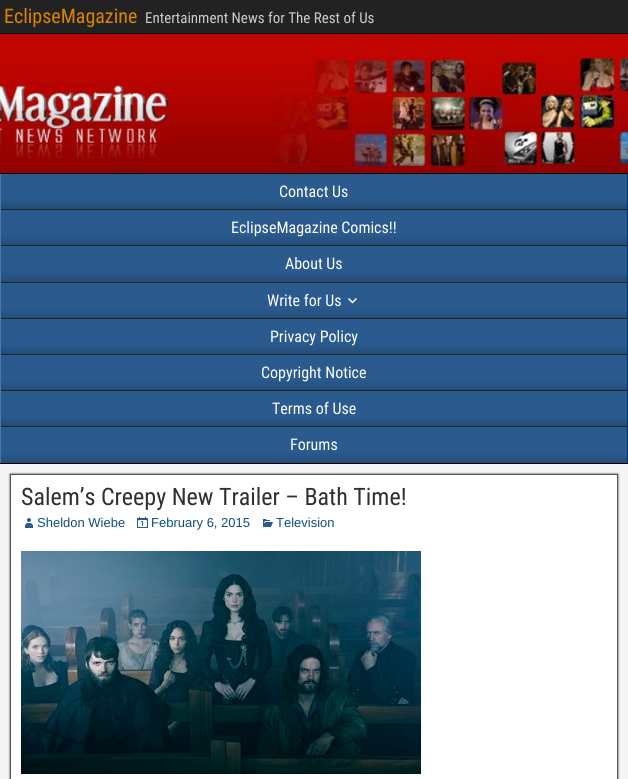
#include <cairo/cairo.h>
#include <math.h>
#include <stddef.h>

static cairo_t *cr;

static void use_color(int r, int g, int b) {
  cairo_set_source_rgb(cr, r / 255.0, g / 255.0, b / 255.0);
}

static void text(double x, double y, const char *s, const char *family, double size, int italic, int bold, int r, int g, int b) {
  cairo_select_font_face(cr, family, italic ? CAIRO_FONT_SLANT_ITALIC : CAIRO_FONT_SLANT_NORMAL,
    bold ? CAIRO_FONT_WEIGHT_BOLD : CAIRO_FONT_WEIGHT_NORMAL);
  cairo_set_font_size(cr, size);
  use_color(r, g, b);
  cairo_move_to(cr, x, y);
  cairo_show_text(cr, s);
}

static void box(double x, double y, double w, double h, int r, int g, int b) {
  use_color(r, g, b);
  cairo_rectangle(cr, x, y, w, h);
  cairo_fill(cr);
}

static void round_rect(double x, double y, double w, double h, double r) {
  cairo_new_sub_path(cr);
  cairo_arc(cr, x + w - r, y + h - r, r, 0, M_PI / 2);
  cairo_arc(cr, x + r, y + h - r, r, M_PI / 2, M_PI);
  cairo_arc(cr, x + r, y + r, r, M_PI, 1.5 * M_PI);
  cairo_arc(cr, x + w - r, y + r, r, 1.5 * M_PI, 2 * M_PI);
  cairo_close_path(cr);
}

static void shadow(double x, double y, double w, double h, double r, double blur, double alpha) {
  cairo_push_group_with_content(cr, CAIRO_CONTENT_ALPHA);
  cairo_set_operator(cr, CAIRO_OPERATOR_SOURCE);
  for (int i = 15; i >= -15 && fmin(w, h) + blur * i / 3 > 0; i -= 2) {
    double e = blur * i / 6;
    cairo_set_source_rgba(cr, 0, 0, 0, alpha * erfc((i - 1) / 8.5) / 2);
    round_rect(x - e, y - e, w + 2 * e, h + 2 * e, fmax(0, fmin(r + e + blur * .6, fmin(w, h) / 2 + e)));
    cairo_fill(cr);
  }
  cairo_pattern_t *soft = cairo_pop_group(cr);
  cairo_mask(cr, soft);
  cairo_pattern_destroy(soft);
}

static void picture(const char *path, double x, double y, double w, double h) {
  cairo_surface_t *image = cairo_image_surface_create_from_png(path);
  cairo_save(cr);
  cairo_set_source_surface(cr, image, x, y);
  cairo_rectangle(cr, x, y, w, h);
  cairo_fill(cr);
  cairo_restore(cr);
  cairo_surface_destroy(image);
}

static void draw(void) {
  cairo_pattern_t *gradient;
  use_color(34, 34, 34);
  cairo_paint(cr);
  box(0, 33, 628, 1, 0, 0, 0);
  picture("img_01.png", 0, 34, 628, 139);
  box(0, 173, 628, 1, 0, 0, 0);
  box(0, 463, 628, 1, 0, 0, 0);
  gradient = cairo_pattern_create_linear(314, 174, 314, 209);
  cairo_pattern_add_color_stop_rgba(gradient, 0.7, 0.165, 0.353, 0.557, 1);
  cairo_pattern_add_color_stop_rgba(gradient, 1, 0.141, 0.302, 0.475, 1);
  cairo_set_source(cr, gradient);
  cairo_pattern_destroy(gradient);
  cairo_rectangle(cr, 1, 174, 626, 35);
  cairo_fill(cr);
  box(627, 174, 1, 289, 2, 50, 102);
  box(627, 209, 1, 1, 34, 34, 34);
  box(0, 174, 1, 289, 72, 120, 172);
  gradient = cairo_pattern_create_linear(314, 210, 314, 245);
  cairo_pattern_add_color_stop_rgba(gradient, 0.7, 0.165, 0.353, 0.557, 1);
  cairo_pattern_add_color_stop_rgba(gradient, 1, 0.141, 0.302, 0.475, 1);
  cairo_set_source(cr, gradient);
  cairo_pattern_destroy(gradient);
  cairo_rectangle(cr, 1, 210, 626, 35);
  cairo_fill(cr);
  box(627, 245, 1, 1, 34, 34, 34);
  gradient = cairo_pattern_create_linear(314, 246, 314, 282);
  cairo_pattern_add_color_stop_rgba(gradient, 0.7, 0.165, 0.353, 0.557, 1);
  cairo_pattern_add_color_stop_rgba(gradient, 1, 0.141, 0.302, 0.475, 1);
  cairo_set_source(cr, gradient);
  cairo_pattern_destroy(gradient);
  cairo_rectangle(cr, 1, 246, 626, 36);
  cairo_fill(cr);
  box(627, 282, 1, 1, 34, 34, 34);
  gradient = cairo_pattern_create_linear(314, 283, 314, 318);
  cairo_pattern_add_color_stop_rgba(gradient, 0.7, 0.165, 0.353, 0.557, 1);
  cairo_pattern_add_color_stop_rgba(gradient, 1, 0.141, 0.302, 0.475, 1);
  cairo_set_source(cr, gradient);
  cairo_pattern_destroy(gradient);
  cairo_rectangle(cr, 1, 283, 626, 35);
  cairo_fill(cr);
  box(627, 318, 1, 1, 34, 34, 34);
  picture("img_02.png", 348, 298, 9, 6);
  gradient = cairo_pattern_create_linear(314, 319, 314, 354);
  cairo_pattern_add_color_stop_rgba(gradient, 0.7, 0.165, 0.353, 0.557, 1);
  cairo_pattern_add_color_stop_rgba(gradient, 1, 0.141, 0.302, 0.475, 1);
  cairo_set_source(cr, gradient);
  cairo_pattern_destroy(gradient);
  cairo_rectangle(cr, 1, 319, 626, 35);
  cairo_fill(cr);
  box(627, 354, 1, 1, 34, 34, 34);
  gradient = cairo_pattern_create_linear(314, 355, 314, 390);
  cairo_pattern_add_color_stop_rgba(gradient, 0.7, 0.165, 0.353, 0.557, 1);
  cairo_pattern_add_color_stop_rgba(gradient, 1, 0.141, 0.302, 0.475, 1);
  cairo_set_source(cr, gradient);
  cairo_pattern_destroy(gradient);
  cairo_rectangle(cr, 1, 355, 626, 35);
  cairo_fill(cr);
  box(627, 390, 1, 1, 34, 34, 34);
  gradient = cairo_pattern_create_linear(314, 391, 314, 426);
  cairo_pattern_add_color_stop_rgba(gradient, 0.7, 0.165, 0.353, 0.557, 1);
  cairo_pattern_add_color_stop_rgba(gradient, 1, 0.141, 0.302, 0.475, 1);
  cairo_set_source(cr, gradient);
  cairo_pattern_destroy(gradient);
  cairo_rectangle(cr, 1, 391, 626, 35);
  cairo_fill(cr);
  box(627, 426, 1, 1, 34, 34, 34);
  gradient = cairo_pattern_create_linear(314, 427, 314, 463);
  cairo_pattern_add_color_stop_rgba(gradient, 0.7, 0.165, 0.353, 0.557, 1);
  cairo_pattern_add_color_stop_rgba(gradient, 1, 0.141, 0.302, 0.475, 1);
  cairo_set_source(cr, gradient);
  cairo_pattern_destroy(gradient);
  cairo_rectangle(cr, 1, 427, 626, 36);
  cairo_fill(cr);
  box(0, 464, 628, 315, 245, 245, 245);
  use_color(51, 51, 51);
  shadow(10, 474, 608, 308, 0, 1, 1);
  use_color(255, 255, 255);
  cairo_rectangle(cr, 10.5, 474.5, 607, 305);
  cairo_fill_preserve(cr);
  use_color(85, 85, 85);
  cairo_set_line_width(cr, 1);
  cairo_stroke(cr);
  picture("img_03.png", 25, 518, 8, 10);
  picture("img_04.png", 137, 517, 11, 11);
  picture("img_05.png", 263, 519, 10, 8);
  picture("img_06.png", 21, 551, 400, 223);
  text(4, 23, "EclipseMagazine", "Roboto Condensed", 20, 0, 0, 220, 131, 0);
  text(145, 23, "Entertainment News for The Rest of Us", "Roboto Condensed", 15, 0, 0, 204, 204, 204);
  text(279, 197, "Contact Us", "Roboto Condensed", 16, 0, 0, 255, 255, 255);
  text(231, 233, "EclipseMagazine Comics!!", "Roboto Condensed", 16, 0, 0, 255, 255, 255);
  text(285, 269, "About Us", "Roboto Condensed", 16, 0, 0, 255, 255, 255);
  text(267, 306, "Write for Us", "Roboto Condensed", 16, 0, 0, 255, 255, 255);
  text(270, 342, "Privacy Policy", "Roboto Condensed", 16, 0, 0, 255, 255, 255);
  text(261, 378, "Copyright Notice", "Roboto Condensed", 16, 0, 0, 255, 255, 255);
  text(272, 414, "Terms of Use", "Roboto Condensed", 16, 0, 0, 255, 255, 255);
  text(290, 450, "Forums", "Roboto Condensed", 16, 0, 0, 255, 255, 255);
  text(21, 505, "Salem’s Creepy New Trailer – Bath Time!", "Roboto Condensed", 24, 0, 0, 48, 48, 48);
  text(37, 527, "Sheldon Wiebe", "Liberation Sans", 13, 0, 0, 14, 77, 122);
  text(151, 527, "February 6, 2015", "Liberation Sans", 13, 0, 0, 14, 77, 122);
  text(276, 527, "Television", "Liberation Sans", 13, 0, 0, 14, 77, 122);
}

int main(void) {
  cairo_surface_t *surface = cairo_image_surface_create(CAIRO_FORMAT_RGB24, 628, 779);
  cr = cairo_create(surface);
  cairo_font_options_t *options = cairo_font_options_create();
  cairo_font_options_set_hint_metrics(options, CAIRO_HINT_METRICS_OFF);
  cairo_font_options_set_hint_style(options, CAIRO_HINT_STYLE_NONE);
  cairo_set_font_options(cr, options);
  cairo_set_miter_limit(cr, 4);
  draw();
  cairo_surface_write_to_png(surface, "out.png");
  cairo_font_options_destroy(options);
  cairo_destroy(cr);
  cairo_surface_destroy(surface);
  return 0;
}
